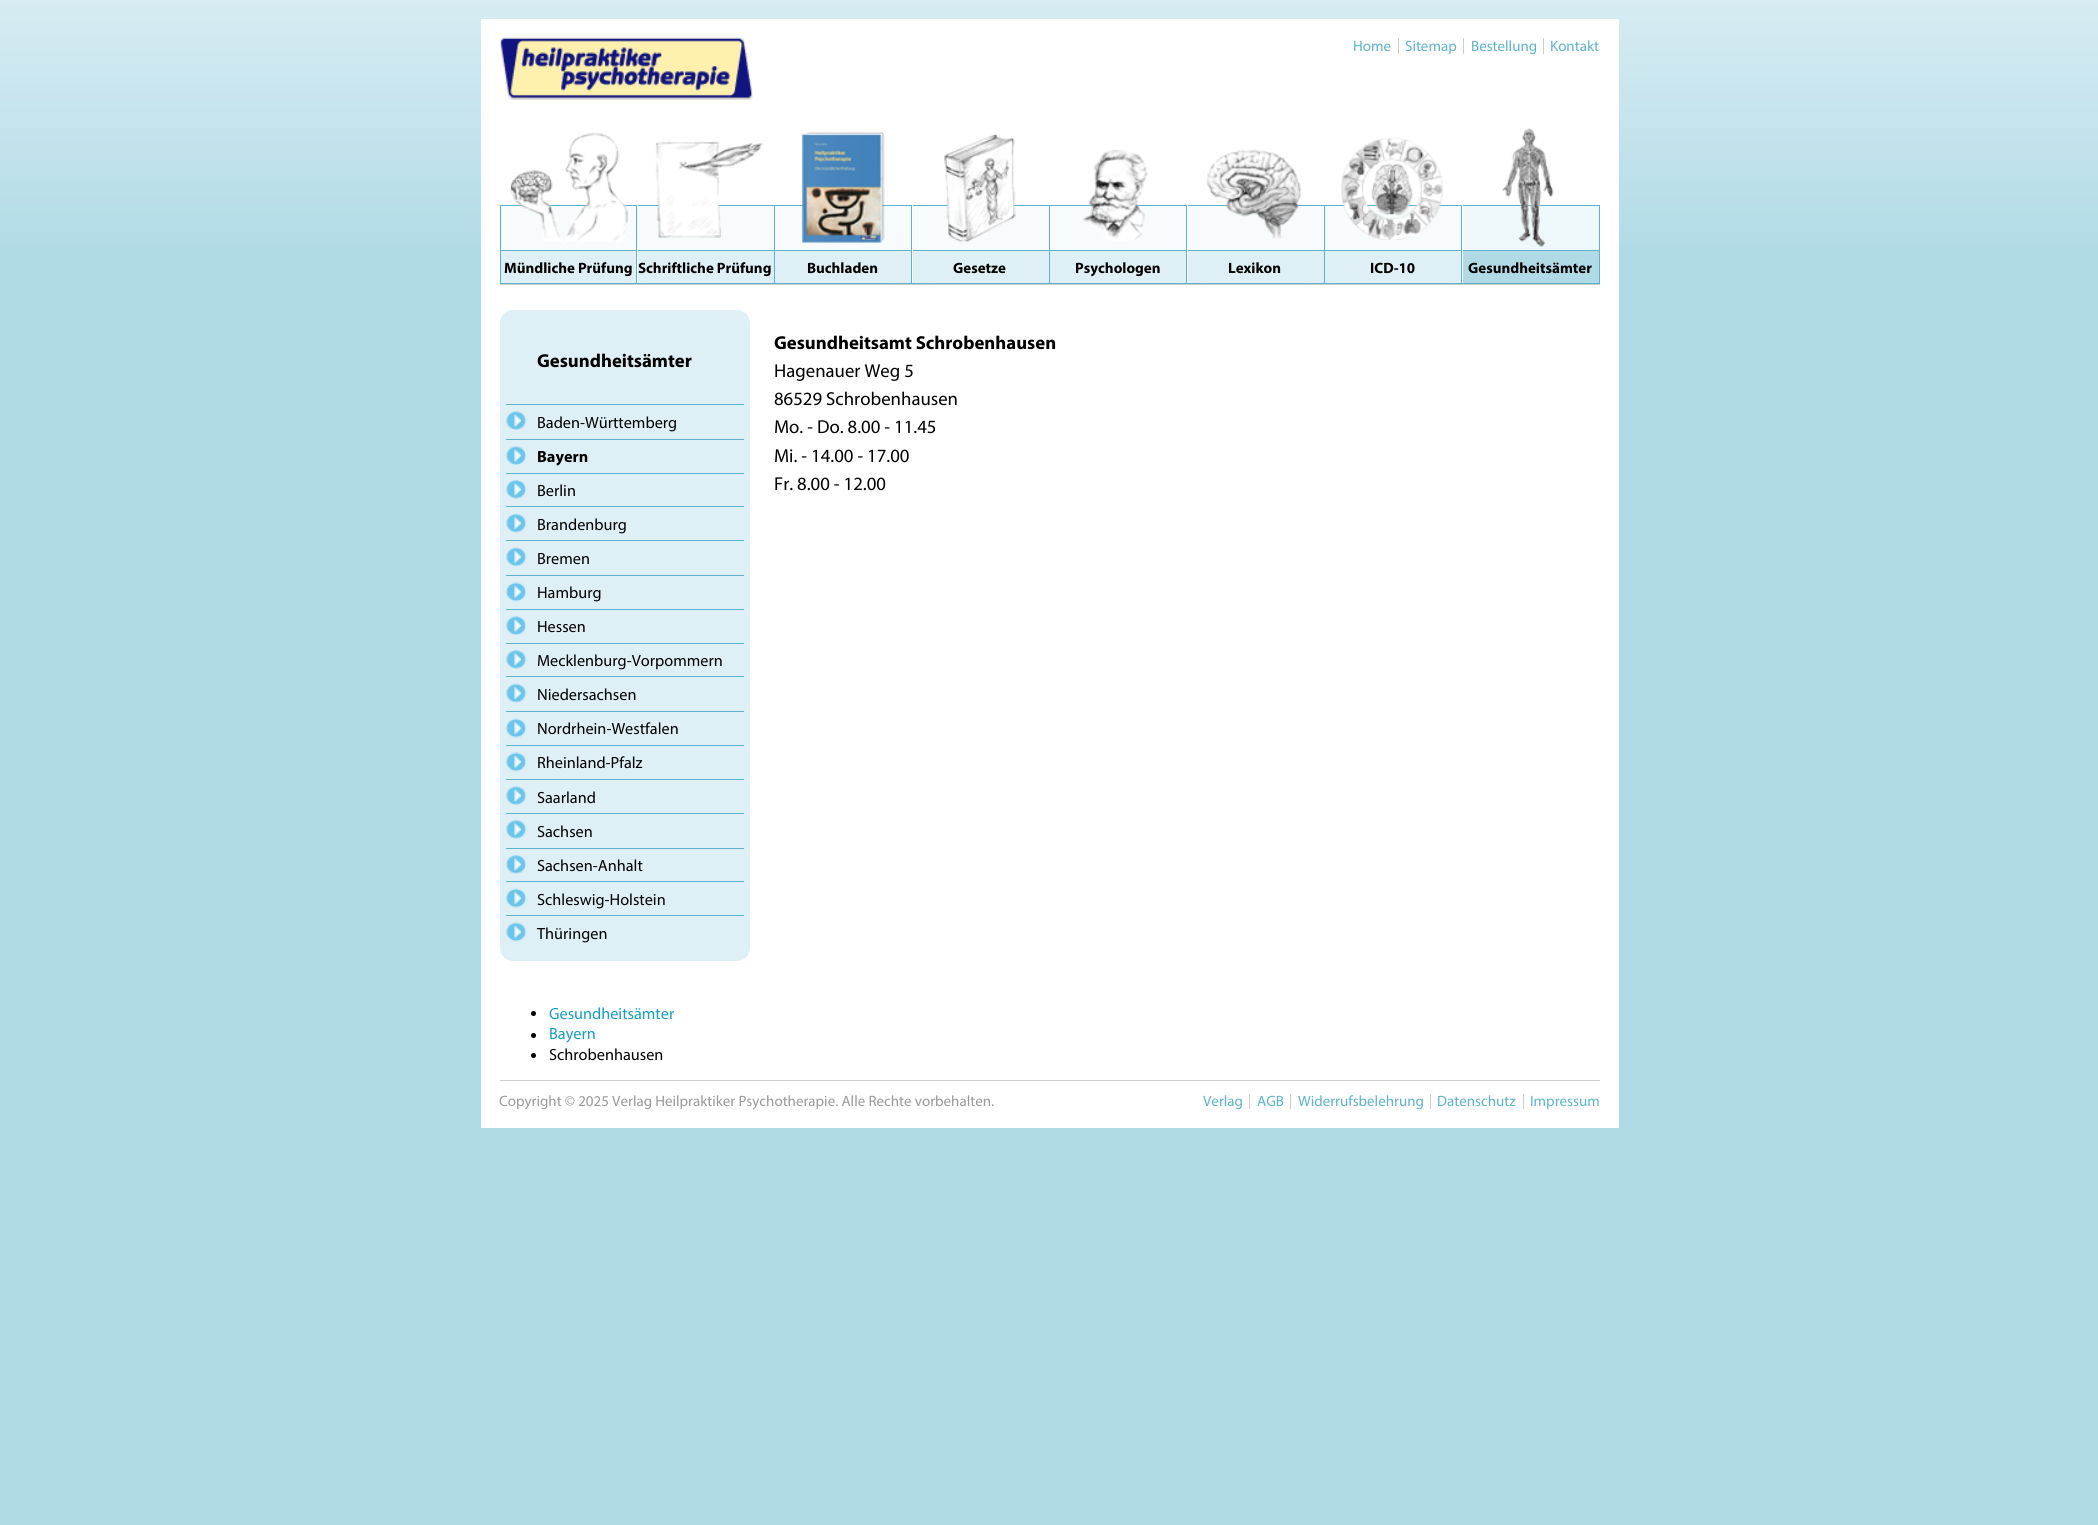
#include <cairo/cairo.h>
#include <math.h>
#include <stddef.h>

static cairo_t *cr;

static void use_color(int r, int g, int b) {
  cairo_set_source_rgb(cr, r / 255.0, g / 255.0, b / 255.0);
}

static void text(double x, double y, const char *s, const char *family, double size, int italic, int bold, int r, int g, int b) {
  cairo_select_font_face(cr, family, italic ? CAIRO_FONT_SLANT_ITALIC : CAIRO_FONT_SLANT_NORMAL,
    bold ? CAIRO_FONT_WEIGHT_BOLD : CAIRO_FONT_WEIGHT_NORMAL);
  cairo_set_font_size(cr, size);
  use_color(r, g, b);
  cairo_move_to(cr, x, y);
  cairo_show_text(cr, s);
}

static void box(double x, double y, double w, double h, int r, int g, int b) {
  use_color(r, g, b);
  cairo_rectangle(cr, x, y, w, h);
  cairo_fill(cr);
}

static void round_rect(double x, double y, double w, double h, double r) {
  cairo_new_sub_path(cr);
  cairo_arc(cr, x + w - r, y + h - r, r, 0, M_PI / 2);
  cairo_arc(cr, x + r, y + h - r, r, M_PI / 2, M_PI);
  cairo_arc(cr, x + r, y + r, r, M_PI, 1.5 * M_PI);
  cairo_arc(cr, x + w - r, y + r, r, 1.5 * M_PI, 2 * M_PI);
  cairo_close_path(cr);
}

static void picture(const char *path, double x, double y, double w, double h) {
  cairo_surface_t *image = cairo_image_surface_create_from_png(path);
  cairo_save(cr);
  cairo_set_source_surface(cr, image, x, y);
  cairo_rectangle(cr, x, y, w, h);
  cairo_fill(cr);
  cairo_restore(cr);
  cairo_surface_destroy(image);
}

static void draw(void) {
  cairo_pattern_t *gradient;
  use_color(176, 218, 230);
  cairo_paint(cr);
  gradient = cairo_pattern_create_linear(1049, 0, 1049, 1146);
  cairo_pattern_add_color_stop_rgba(gradient, 0, 0.839, 0.925, 0.949, 1);
  cairo_pattern_add_color_stop_rgba(gradient, 0.23, 0.69, 0.855, 0.902, 1);
  cairo_set_source(cr, gradient);
  cairo_pattern_destroy(gradient);
  cairo_rectangle(cr, 0, 0, 2098, 246);
  cairo_fill(cr);
  box(481, 19, 1138, 1109, 255, 255, 255);
  picture("img_01.png", 500, 37, 253, 63);
  box(1398, 38, 1, 16, 204, 204, 204);
  box(1463, 38, 1, 16, 204, 204, 204);
  box(1543, 38, 1, 16, 204, 204, 204);
  box(500, 284, 1100, 1, 204, 204, 204);
  box(636, 205, 1, 79, 92, 179, 204);
  box(500, 283, 138, 1, 92, 179, 204);
  box(500, 205, 1, 79, 92, 179, 204);
  box(501, 206, 135, 44, 247, 251, 252);
  box(501, 205, 135, 1, 92, 179, 204);
  picture("img_02.png", 509, 132, 119, 110);
  box(501, 251, 135, 32, 222, 240, 245);
  box(501, 250, 135, 1, 92, 179, 204);
  box(774, 205, 1, 79, 92, 179, 204);
  box(638, 283, 137, 1, 92, 179, 204);
  box(638, 206, 136, 44, 247, 251, 252);
  box(638, 205, 136, 1, 92, 179, 204);
  picture("img_03.png", 655, 141, 109, 97);
  box(638, 251, 136, 32, 222, 240, 245);
  box(638, 250, 136, 1, 92, 179, 204);
  box(911, 205, 1, 79, 92, 179, 204);
  box(775, 283, 138, 1, 92, 179, 204);
  box(775, 206, 136, 44, 247, 251, 252);
  box(775, 205, 136, 1, 92, 179, 204);
  picture("img_04.png", 801, 132, 84, 111);
  box(775, 251, 136, 32, 222, 240, 245);
  box(775, 250, 136, 1, 92, 179, 204);
  box(1049, 205, 1, 79, 92, 179, 204);
  box(913, 283, 137, 1, 92, 179, 204);
  box(913, 206, 136, 44, 247, 251, 252);
  box(913, 205, 136, 1, 92, 179, 204);
  picture("img_05.png", 944, 134, 72, 108);
  box(913, 251, 136, 32, 222, 240, 245);
  box(913, 250, 136, 1, 92, 179, 204);
  box(1186, 205, 1, 79, 92, 179, 204);
  box(1050, 283, 138, 1, 92, 179, 204);
  box(1050, 206, 136, 44, 247, 251, 252);
  box(1050, 205, 136, 1, 92, 179, 204);
  picture("img_06.png", 1082, 149, 66, 92);
  box(1050, 251, 136, 32, 222, 240, 245);
  box(1050, 250, 136, 1, 92, 179, 204);
  box(1324, 205, 1, 79, 92, 179, 204);
  box(1188, 283, 137, 1, 92, 179, 204);
  box(1188, 206, 136, 44, 247, 251, 252);
  box(1188, 205, 136, 1, 92, 179, 204);
  picture("img_07.png", 1206, 149, 96, 90);
  box(1188, 251, 136, 32, 222, 240, 245);
  box(1188, 250, 136, 1, 92, 179, 204);
  box(1461, 205, 1, 79, 92, 179, 204);
  box(1325, 283, 138, 1, 92, 179, 204);
  box(1325, 206, 136, 44, 247, 251, 252);
  box(1325, 205, 136, 1, 92, 179, 204);
  picture("img_08.png", 1341, 137, 102, 104);
  box(1325, 251, 136, 32, 222, 240, 245);
  box(1325, 250, 136, 1, 92, 179, 204);
  box(1599, 205, 1, 79, 92, 179, 204);
  box(1463, 283, 137, 1, 92, 179, 204);
  box(1463, 206, 136, 44, 238, 247, 250);
  box(1463, 205, 136, 1, 92, 179, 204);
  picture("img_09.png", 1501, 128, 53, 119);
  box(1463, 251, 136, 32, 176, 218, 230);
  box(1463, 250, 136, 1, 92, 179, 204);
  use_color(222, 240, 245);
  round_rect(500, 310, 250, 651, 13);
  cairo_fill(cr);
  box(506, 404, 238, 1, 92, 179, 204);
  picture("img_10.png", 506, 411, 21, 19);
  box(506, 439, 238, 1, 92, 179, 204);
  picture("img_10.png", 506, 446, 21, 19);
  box(506, 473, 238, 1, 92, 179, 204);
  picture("img_11.png", 506, 480, 21, 19);
  box(506, 506, 238, 1, 92, 179, 204);
  picture("img_12.png", 506, 513, 21, 20);
  box(506, 540, 238, 1, 92, 179, 204);
  picture("img_13.png", 506, 547, 21, 20);
  box(506, 575, 238, 1, 92, 179, 204);
  picture("img_14.png", 506, 582, 21, 20);
  box(506, 609, 238, 1, 92, 179, 204);
  picture("img_10.png", 506, 616, 21, 19);
  box(506, 643, 238, 1, 92, 179, 204);
  picture("img_11.png", 506, 650, 21, 19);
  box(506, 676, 238, 1, 92, 179, 204);
  picture("img_12.png", 506, 683, 21, 20);
  box(506, 711, 238, 1, 92, 179, 204);
  picture("img_12.png", 506, 718, 21, 20);
  box(506, 745, 238, 1, 92, 179, 204);
  picture("img_13.png", 506, 752, 21, 20);
  box(506, 779, 238, 1, 92, 179, 204);
  picture("img_10.png", 506, 786, 21, 19);
  box(506, 813, 238, 1, 92, 179, 204);
  picture("img_11.png", 506, 820, 21, 19);
  box(506, 848, 238, 1, 92, 179, 204);
  picture("img_11.png", 506, 855, 21, 19);
  box(506, 881, 238, 1, 92, 179, 204);
  picture("img_12.png", 506, 888, 21, 20);
  box(506, 915, 238, 1, 92, 179, 204);
  picture("img_13.png", 506, 922, 21, 20);
  use_color(0, 0, 0);
  cairo_arc(cr, 533.5, 1013.5, 2.5, 0, 2 * M_PI);
  cairo_fill(cr);
  cairo_arc(cr, 533.5, 1035.5, 2.5, 0, 2 * M_PI);
  cairo_fill(cr);
  cairo_arc(cr, 533.5, 1055.5, 2.5, 0, 2 * M_PI);
  cairo_fill(cr);
  box(500, 1080, 1100, 1, 204, 204, 204);
  box(1249, 1094, 1, 15, 204, 204, 204);
  box(1290, 1094, 1, 15, 204, 204, 204);
  box(1430, 1094, 1, 15, 204, 204, 204);
  box(1523, 1094, 1, 15, 204, 204, 204);
  text(1353, 51, "Home", "myriad", 15, 0, 0, 92, 179, 204);
  text(1405, 51, "Sitemap", "myriad", 15, 0, 0, 92, 179, 204);
  text(1471, 51, "Bestellung", "myriad", 15, 0, 0, 92, 179, 204);
  text(1550, 51, "Kontakt", "myriad", 15, 0, 0, 92, 179, 204);
  text(504, 273, "Mündliche Prüfung", "myriad", 15, 0, 1, 0, 0, 0);
  text(638, 273, "Schriftliche Prüfung", "myriad", 15, 0, 1, 0, 0, 0);
  text(807, 273, "Buchladen", "myriad", 15, 0, 1, 0, 0, 0);
  text(953, 273, "Gesetze", "myriad", 15, 0, 1, 0, 0, 0);
  text(1075, 273, "Psychologen", "myriad", 15, 0, 1, 0, 0, 0);
  text(1228, 273, "Lexikon", "myriad", 15, 0, 1, 0, 0, 0);
  text(1370, 273, "ICD-10", "myriad", 15, 0, 1, 0, 0, 0);
  text(1468, 273, "Gesundheitsämter", "myriad", 15, 0, 1, 0, 0, 0);
  text(537, 367, "Gesundheitsämter", "myriad", 18.75, 0, 1, 0, 0, 0);
  text(537, 428, "Baden-Württemberg", "myriad", 16.25, 0, 0, 0, 0, 0);
  text(537, 462, "Bayern", "myriad", 16.25, 0, 1, 0, 0, 0);
  text(537, 496, "Berlin", "myriad", 16.25, 0, 0, 0, 0, 0);
  text(537, 530, "Brandenburg", "myriad", 16.25, 0, 0, 0, 0, 0);
  text(537, 564, "Bremen", "myriad", 16.25, 0, 0, 0, 0, 0);
  text(537, 598, "Hamburg", "myriad", 16.25, 0, 0, 0, 0, 0);
  text(537, 632, "Hessen", "myriad", 16.25, 0, 0, 0, 0, 0);
  text(537, 666, "Mecklenburg-Vorpommern", "myriad", 16.25, 0, 0, 0, 0, 0);
  text(537, 700, "Niedersachsen", "myriad", 16.25, 0, 0, 0, 0, 0);
  text(537, 734, "Nordrhein-Westfalen", "myriad", 16.25, 0, 0, 0, 0, 0);
  text(537, 768, "Rheinland-Pfalz", "myriad", 16.25, 0, 0, 0, 0, 0);
  text(537, 803, "Saarland", "myriad", 16.25, 0, 0, 0, 0, 0);
  text(537, 837, "Sachsen", "myriad", 16.25, 0, 0, 0, 0, 0);
  text(537, 871, "Sachsen-Anhalt", "myriad", 16.25, 0, 0, 0, 0, 0);
  text(537, 905, "Schleswig-Holstein", "myriad", 16.25, 0, 0, 0, 0, 0);
  text(537, 939, "Thüringen", "myriad", 16.25, 0, 0, 0, 0, 0);
  text(774, 349, "Gesundheitsamt Schrobenhausen", "myriad", 18.75, 0, 1, 0, 0, 0);
  text(774, 377, "Hagenauer Weg 5", "myriad", 18.75, 0, 0, 0, 0, 0);
  text(774, 405, "86529 Schrobenhausen", "myriad", 18.75, 0, 0, 0, 0, 0);
  text(774, 433, "Mo. - Do. 8.00 - 11.45", "myriad", 18.75, 0, 0, 0, 0, 0);
  text(774, 462, "Mi. - 14.00 - 17.00", "myriad", 18.75, 0, 0, 0, 0, 0);
  text(774, 490, "Fr. 8.00 - 12.00", "myriad", 18.75, 0, 0, 0, 0, 0);
  text(549, 1019, "Gesundheitsämter", "myriad", 16.25, 0, 0, 19, 159, 191);
  text(549, 1039, "Bayern", "myriad", 16.25, 0, 0, 19, 159, 191);
  text(549, 1060, "Schrobenhausen", "myriad", 16.25, 0, 0, 0, 0, 0);
  text(499, 1106, "Copyright © 2025 Verlag Heilpraktiker Psychotherapie. Alle Rechte vorbehalten.", "myriad", 15, 0, 0, 153, 153, 153);
  text(1203, 1106, "Verlag", "myriad", 15, 0, 0, 92, 179, 204);
  text(1257, 1106, "AGB", "myriad", 15, 0, 0, 92, 179, 204);
  text(1298, 1106, "Widerrufsbelehrung", "myriad", 15, 0, 0, 92, 179, 204);
  text(1437, 1106, "Datenschutz", "myriad", 15, 0, 0, 92, 179, 204);
  text(1530, 1106, "Impressum", "myriad", 15, 0, 0, 92, 179, 204);
}

int main(void) {
  cairo_surface_t *surface = cairo_image_surface_create(CAIRO_FORMAT_RGB24, 2098, 1525);
  cr = cairo_create(surface);
  cairo_font_options_t *options = cairo_font_options_create();
  cairo_font_options_set_hint_metrics(options, CAIRO_HINT_METRICS_OFF);
  cairo_font_options_set_hint_style(options, CAIRO_HINT_STYLE_NONE);
  cairo_set_font_options(cr, options);
  cairo_set_miter_limit(cr, 4);
  draw();
  cairo_surface_write_to_png(surface, "out.png");
  cairo_font_options_destroy(options);
  cairo_destroy(cr);
  cairo_surface_destroy(surface);
  return 0;
}
